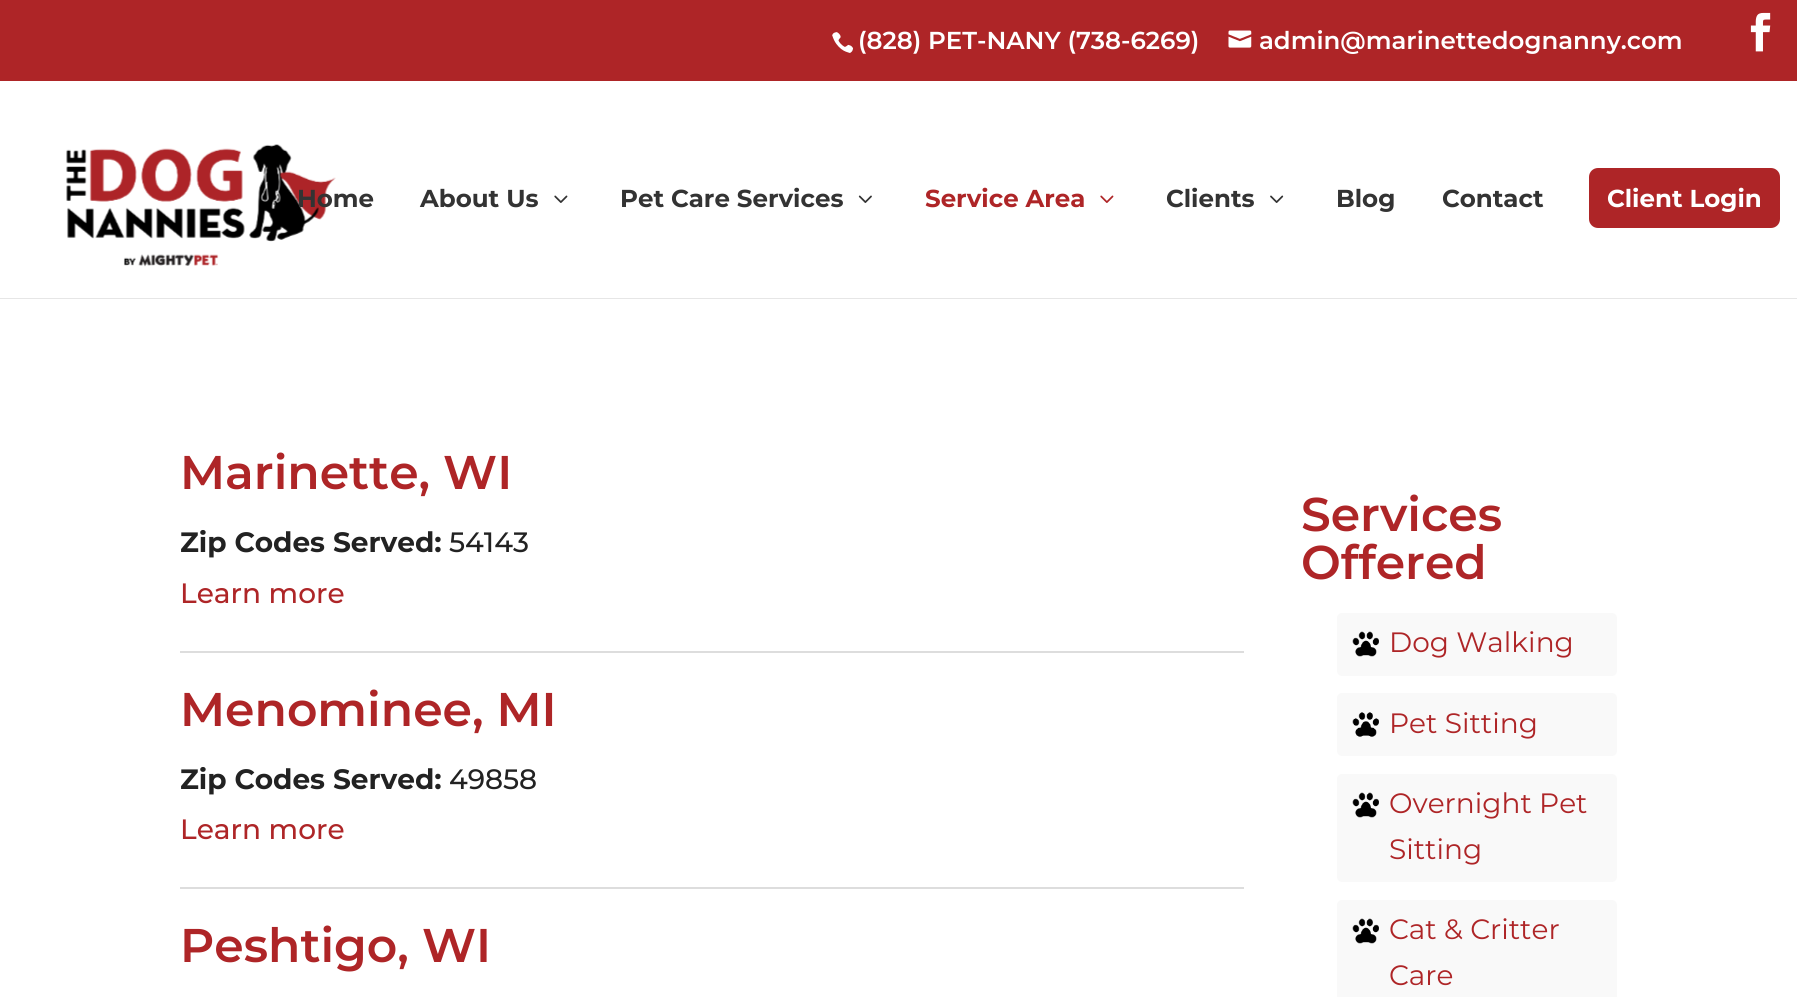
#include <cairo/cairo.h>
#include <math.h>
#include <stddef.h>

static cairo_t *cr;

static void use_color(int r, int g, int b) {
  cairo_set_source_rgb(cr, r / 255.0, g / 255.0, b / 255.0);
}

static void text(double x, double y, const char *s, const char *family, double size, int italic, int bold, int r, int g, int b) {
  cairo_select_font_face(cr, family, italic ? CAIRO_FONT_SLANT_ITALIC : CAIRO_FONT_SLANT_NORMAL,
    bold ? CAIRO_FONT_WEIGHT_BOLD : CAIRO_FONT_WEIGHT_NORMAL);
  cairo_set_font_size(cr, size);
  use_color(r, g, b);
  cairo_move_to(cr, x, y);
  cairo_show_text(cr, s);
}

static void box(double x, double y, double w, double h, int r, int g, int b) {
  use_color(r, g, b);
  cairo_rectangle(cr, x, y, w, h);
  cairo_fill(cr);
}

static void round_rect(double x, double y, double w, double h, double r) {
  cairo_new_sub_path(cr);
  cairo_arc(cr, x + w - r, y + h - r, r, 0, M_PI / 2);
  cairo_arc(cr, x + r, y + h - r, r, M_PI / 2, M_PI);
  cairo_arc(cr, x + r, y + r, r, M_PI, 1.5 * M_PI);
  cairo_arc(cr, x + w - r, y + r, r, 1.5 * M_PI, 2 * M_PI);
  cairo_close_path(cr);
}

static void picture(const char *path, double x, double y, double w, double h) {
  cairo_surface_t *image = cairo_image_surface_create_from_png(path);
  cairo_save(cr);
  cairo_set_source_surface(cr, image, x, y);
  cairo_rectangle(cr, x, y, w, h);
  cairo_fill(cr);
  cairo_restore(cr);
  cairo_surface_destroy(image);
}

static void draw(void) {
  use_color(255, 255, 255);
  cairo_paint(cr);
  box(0, 0, 1797, 81, 174, 37, 39);
  picture("img_01.png", 832, 32, 21, 21);
  picture("img_02.png", 1228, 30, 24, 18);
  picture("img_03.png", 1750, 12, 21, 40);
  box(0, 298, 1797, 1, 230, 230, 230);
  picture("img_04.png", 66, 144, 270, 123);
  picture("img_05.png", 554, 195, 14, 8);
  picture("img_06.png", 858, 195, 14, 8);
  picture("img_07.png", 1100, 195, 14, 8);
  picture("img_08.png", 1270, 195, 14, 8);
  use_color(174, 37, 39);
  round_rect(1589, 168, 191, 60, 9);
  cairo_fill(cr);
  box(180, 651, 1064, 2, 221, 221, 221);
  box(180, 887, 1064, 2, 221, 221, 221);
  use_color(249, 249, 249);
  round_rect(1337, 613, 280, 63, 5);
  cairo_fill(cr);
  picture("img_09.png", 1352, 631, 27, 26);
  round_rect(1337, 693, 280, 63, 5);
  cairo_fill(cr);
  picture("img_10.png", 1352, 712, 27, 25);
  round_rect(1337, 774, 280, 108, 5);
  cairo_fill(cr);
  picture("img_09.png", 1352, 792, 27, 26);
  round_rect(1337, 900, 280, 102, 5);
  cairo_fill(cr);
  picture("img_09.png", 1352, 918, 27, 26);
  text(858, 49, "(828) PET-NANY (738-6269)", "Montserrat SemiBold", 24.5, 0, 0, 255, 255, 255);
  text(1259, 49, "admin@marinettedognanny.com", "Montserrat SemiBold", 24.5, 0, 0, 255, 255, 255);
  text(297, 207, "Home", "Montserrat", 24.5, 0, 1, 51, 51, 51);
  text(420, 207, "About Us", "Montserrat", 24.5, 0, 1, 51, 51, 51);
  text(620, 207, "Pet Care Services", "Montserrat", 24.5, 0, 1, 51, 51, 51);
  text(925, 207, "Service Area", "Montserrat", 24.5, 0, 1, 174, 37, 39);
  text(1166, 207, "Clients", "Montserrat", 24.5, 0, 1, 51, 51, 51);
  text(1336, 207, "Blog", "Montserrat", 24.5, 0, 1, 51, 51, 51);
  text(1442, 207, "Contact", "Montserrat", 24.5, 0, 1, 51, 51, 51);
  text(1607, 207, "Client Login", "Montserrat", 24.5, 0, 1, 255, 255, 255);
  text(180, 489, "Marinette, WI", "Montserrat SemiBold", 47.25, 0, 0, 174, 37, 39);
  text(180, 552, "Zip Codes Served:", "Montserrat", 28, 0, 1, 34, 34, 34);
  text(449, 552, "54143", "Montserrat Medium", 28, 0, 0, 34, 34, 34);
  text(180, 603, "Learn more", "Montserrat Medium", 28, 0, 0, 174, 37, 39);
  text(180, 726, "Menominee, MI", "Montserrat SemiBold", 47.25, 0, 0, 174, 37, 39);
  text(180, 789, "Zip Codes Served:", "Montserrat", 28, 0, 1, 34, 34, 34);
  text(449, 789, "49858", "Montserrat Medium", 28, 0, 0, 34, 34, 34);
  text(180, 839, "Learn more", "Montserrat Medium", 28, 0, 0, 174, 37, 39);
  text(180, 962, "Peshtigo, WI", "Montserrat SemiBold", 47.25, 0, 0, 174, 37, 39);
  text(1301, 531, "Services", "Montserrat SemiBold", 47.25, 0, 0, 174, 37, 39);
  text(1301, 579, "Offered", "Montserrat SemiBold", 47.25, 0, 0, 174, 37, 39);
  text(1389, 652, "Dog Walking", "Montserrat", 28, 0, 0, 174, 37, 39);
  text(1389, 733, "Pet Sitting", "Montserrat", 28, 0, 0, 174, 37, 39);
  text(1389, 813, "Overnight Pet", "Montserrat", 28, 0, 0, 174, 37, 39);
  text(1389, 859, "Sitting", "Montserrat", 28, 0, 0, 174, 37, 39);
  text(1389, 939, "Cat & Critter", "Montserrat", 28, 0, 0, 174, 37, 39);
  text(1389, 985, "Care", "Montserrat", 28, 0, 0, 174, 37, 39);
}

int main(void) {
  cairo_surface_t *surface = cairo_image_surface_create(CAIRO_FORMAT_RGB24, 1797, 997);
  cr = cairo_create(surface);
  cairo_font_options_t *options = cairo_font_options_create();
  cairo_font_options_set_hint_metrics(options, CAIRO_HINT_METRICS_OFF);
  cairo_font_options_set_hint_style(options, CAIRO_HINT_STYLE_NONE);
  cairo_set_font_options(cr, options);
  cairo_set_miter_limit(cr, 4);
  draw();
  cairo_surface_write_to_png(surface, "out.png");
  cairo_font_options_destroy(options);
  cairo_destroy(cr);
  cairo_surface_destroy(surface);
  return 0;
}
